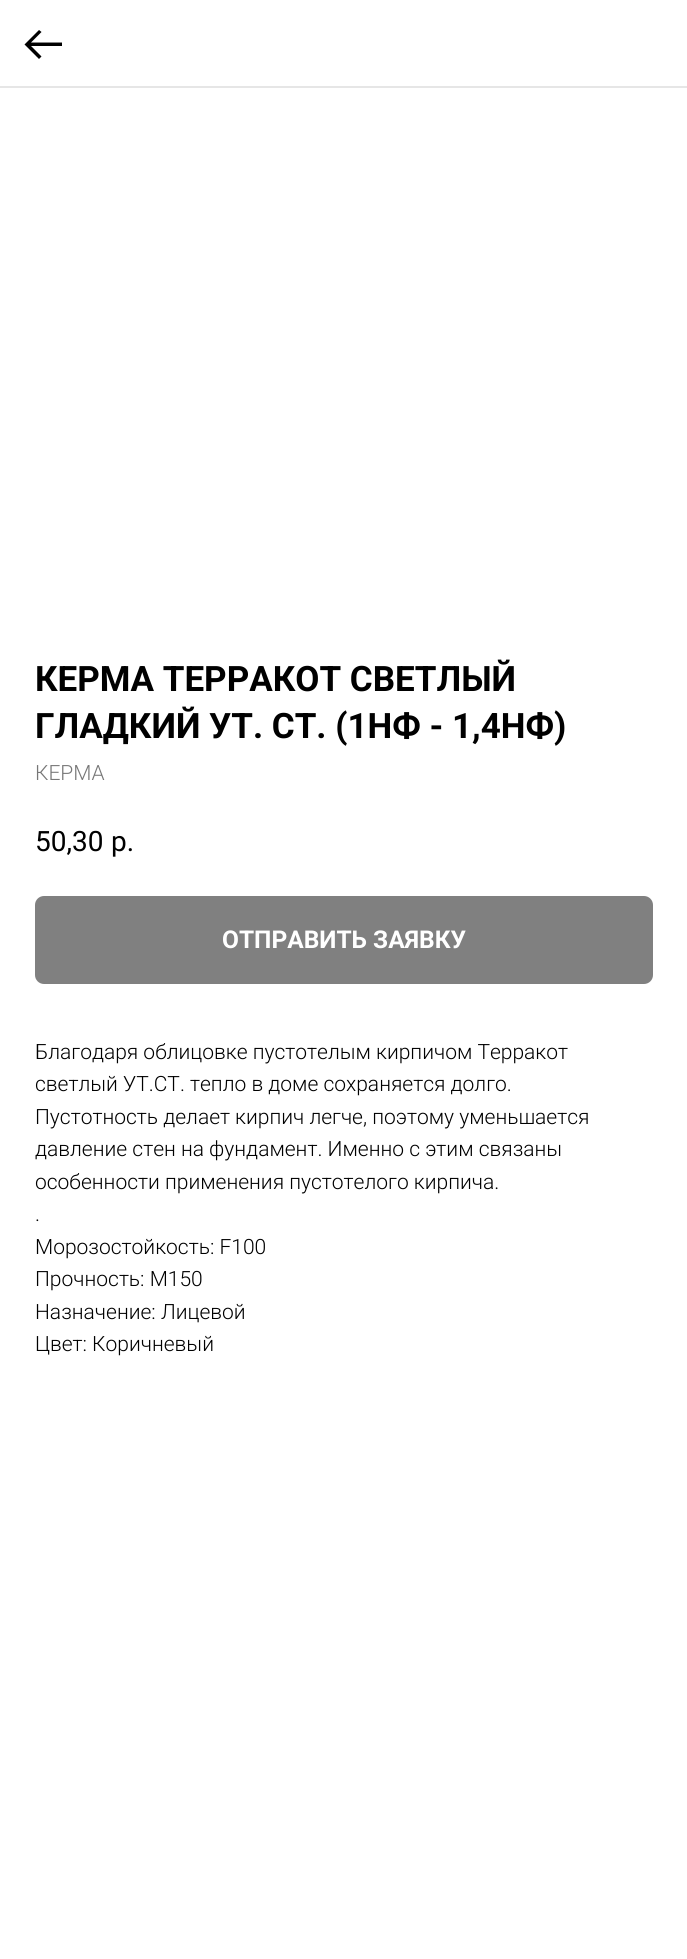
#include <cairo/cairo.h>
#include <math.h>
#include <stddef.h>

static cairo_t *cr;

static void use_color(int r, int g, int b) {
  cairo_set_source_rgb(cr, r / 255.0, g / 255.0, b / 255.0);
}

static void text(double x, double y, const char *s, const char *family, double size, int italic, int bold, int r, int g, int b) {
  cairo_select_font_face(cr, family, italic ? CAIRO_FONT_SLANT_ITALIC : CAIRO_FONT_SLANT_NORMAL,
    bold ? CAIRO_FONT_WEIGHT_BOLD : CAIRO_FONT_WEIGHT_NORMAL);
  cairo_set_font_size(cr, size);
  use_color(r, g, b);
  cairo_move_to(cr, x, y);
  cairo_show_text(cr, s);
}

static void box(double x, double y, double w, double h, int r, int g, int b) {
  use_color(r, g, b);
  cairo_rectangle(cr, x, y, w, h);
  cairo_fill(cr);
}

static void round_rect(double x, double y, double w, double h, double r) {
  cairo_new_sub_path(cr);
  cairo_arc(cr, x + w - r, y + h - r, r, 0, M_PI / 2);
  cairo_arc(cr, x + r, y + h - r, r, M_PI / 2, M_PI);
  cairo_arc(cr, x + r, y + r, r, M_PI, 1.5 * M_PI);
  cairo_arc(cr, x + w - r, y + r, r, 1.5 * M_PI, 2 * M_PI);
  cairo_close_path(cr);
}

static void draw(void) {
  use_color(255, 255, 255);
  cairo_paint(cr);
  box(0, 86, 687, 2, 230, 230, 230);
  use_color(0, 0, 0);
  cairo_new_path(cr);
  cairo_move_to(cr, 39, 30);
  cairo_line_to(cr, 41.5, 32);
  cairo_line_to(cr, 31, 42.5);
  cairo_line_to(cr, 62, 42.5);
  cairo_line_to(cr, 62, 46);
  cairo_line_to(cr, 31, 46);
  cairo_line_to(cr, 41.5, 56.5);
  cairo_line_to(cr, 39, 59);
  cairo_line_to(cr, 24.5, 44.5);
  cairo_close_path(cr);
  cairo_fill(cr);
  use_color(128, 128, 128);
  round_rect(35, 896, 618, 88, 9);
  cairo_fill(cr);
  text(35, 691, "КЕРМА ТЕРРАКОТ СВЕТЛЫЙ", "Roboto", 35, 0, 1, 0, 0, 0);
  text(35, 738, "ГЛАДКИЙ УТ. СТ. (1НФ - 1,4НФ)", "Roboto", 35, 0, 1, 0, 0, 0);
  text(35, 780, "КЕРМА", "Roboto Light", 21, 0, 0, 119, 119, 119);
  text(35, 851, "50,30", "Roboto", 28, 0, 0, 0, 0, 0);
  text(111, 851, "р.", "Roboto", 28, 0, 0, 0, 0, 0);
  text(222, 948, "ОТПРАВИТЬ ЗАЯВКУ", "Roboto", 24.5, 0, 1, 255, 255, 255);
  text(35, 1059, "Благодаря облицовке пустотелым кирпичом Терракот", "Roboto Light", 21, 0, 0, 0, 0, 0);
  text(35, 1091, "светлый УТ.СТ. тепло в доме сохраняется долго.", "Roboto Light", 21, 0, 0, 0, 0, 0);
  text(35, 1124, "Пустотность делает кирпич легче, поэтому уменьшается", "Roboto Light", 21, 0, 0, 0, 0, 0);
  text(35, 1156, "давление стен на фундамент. Именно с этим связаны", "Roboto Light", 21, 0, 0, 0, 0, 0);
  text(35, 1189, "особенности применения пустотелого кирпича.", "Roboto Light", 21, 0, 0, 0, 0, 0);
  text(35, 1221, ".", "Roboto Light", 21, 0, 0, 0, 0, 0);
  text(35, 1254, "Морозостойкость: F100", "Roboto Light", 21, 0, 0, 0, 0, 0);
  text(35, 1286, "Прочность: М150", "Roboto Light", 21, 0, 0, 0, 0, 0);
  text(35, 1319, "Назначение: Лицевой", "Roboto Light", 21, 0, 0, 0, 0, 0);
  text(35, 1351, "Цвет: Коричневый", "Roboto Light", 21, 0, 0, 0, 0, 0);
}

int main(void) {
  cairo_surface_t *surface = cairo_image_surface_create(CAIRO_FORMAT_RGB24, 687, 1959);
  cr = cairo_create(surface);
  cairo_font_options_t *options = cairo_font_options_create();
  cairo_font_options_set_hint_metrics(options, CAIRO_HINT_METRICS_OFF);
  cairo_font_options_set_hint_style(options, CAIRO_HINT_STYLE_NONE);
  cairo_set_font_options(cr, options);
  cairo_set_miter_limit(cr, 4);
  draw();
  cairo_surface_write_to_png(surface, "out.png");
  cairo_font_options_destroy(options);
  cairo_destroy(cr);
  cairo_surface_destroy(surface);
  return 0;
}
